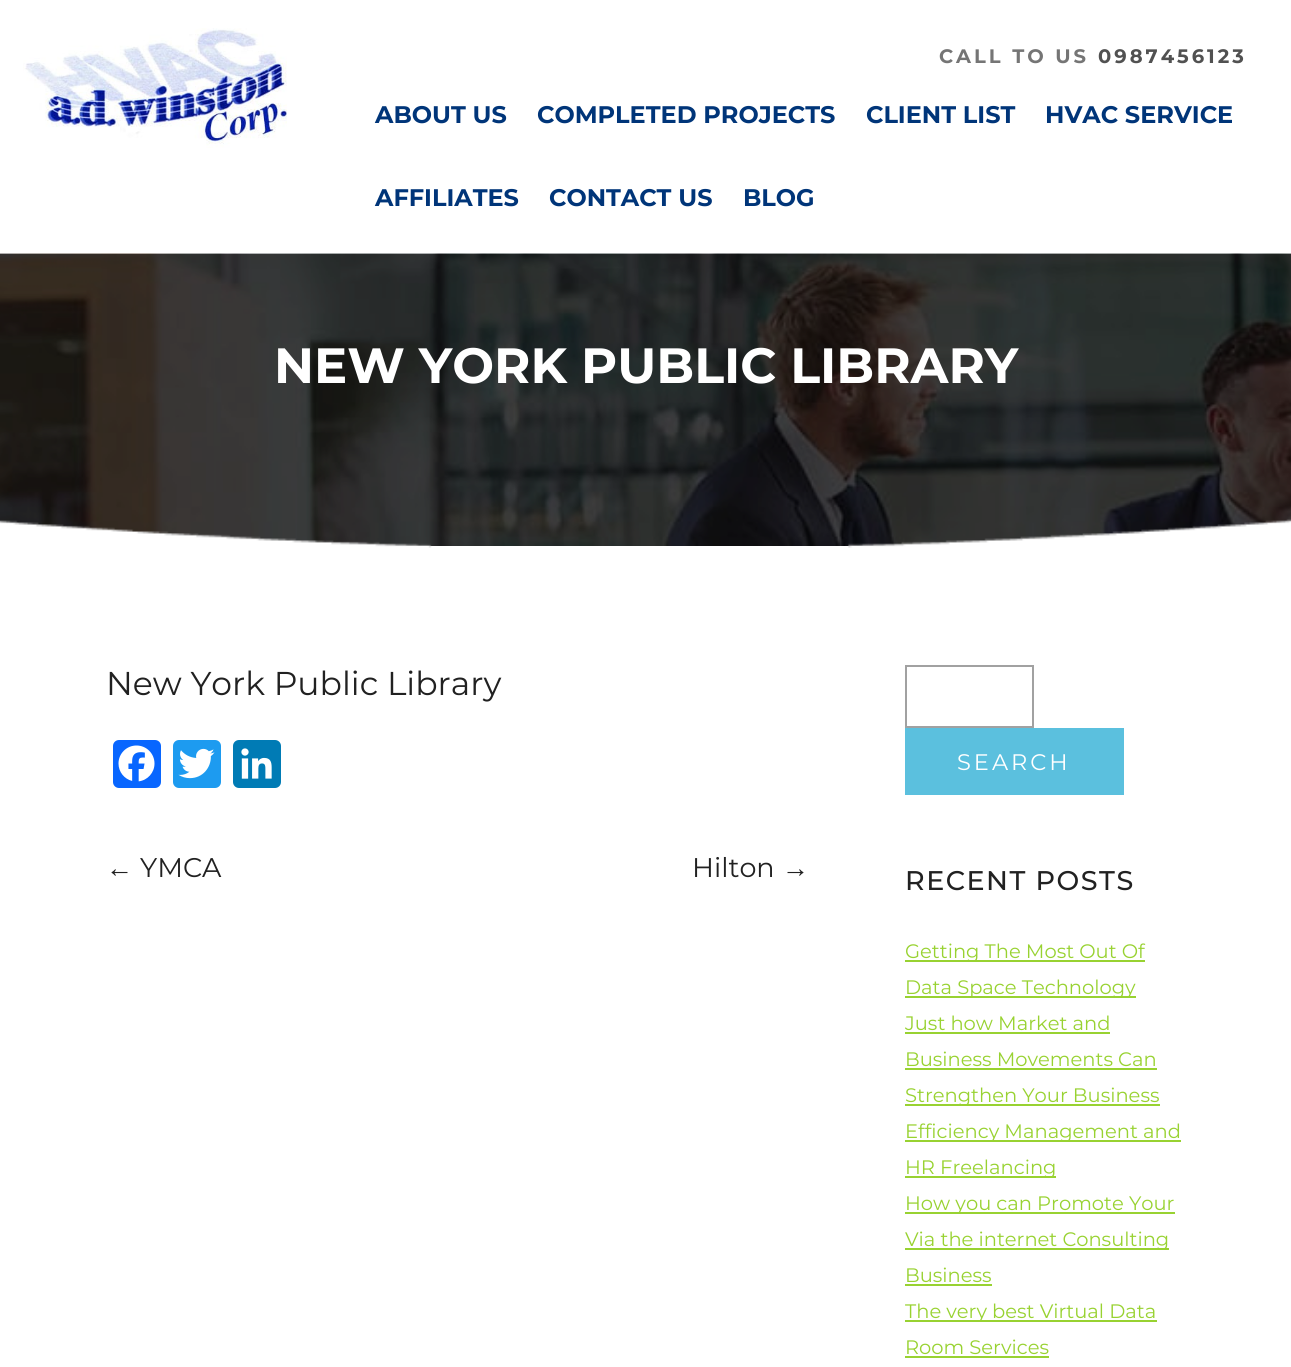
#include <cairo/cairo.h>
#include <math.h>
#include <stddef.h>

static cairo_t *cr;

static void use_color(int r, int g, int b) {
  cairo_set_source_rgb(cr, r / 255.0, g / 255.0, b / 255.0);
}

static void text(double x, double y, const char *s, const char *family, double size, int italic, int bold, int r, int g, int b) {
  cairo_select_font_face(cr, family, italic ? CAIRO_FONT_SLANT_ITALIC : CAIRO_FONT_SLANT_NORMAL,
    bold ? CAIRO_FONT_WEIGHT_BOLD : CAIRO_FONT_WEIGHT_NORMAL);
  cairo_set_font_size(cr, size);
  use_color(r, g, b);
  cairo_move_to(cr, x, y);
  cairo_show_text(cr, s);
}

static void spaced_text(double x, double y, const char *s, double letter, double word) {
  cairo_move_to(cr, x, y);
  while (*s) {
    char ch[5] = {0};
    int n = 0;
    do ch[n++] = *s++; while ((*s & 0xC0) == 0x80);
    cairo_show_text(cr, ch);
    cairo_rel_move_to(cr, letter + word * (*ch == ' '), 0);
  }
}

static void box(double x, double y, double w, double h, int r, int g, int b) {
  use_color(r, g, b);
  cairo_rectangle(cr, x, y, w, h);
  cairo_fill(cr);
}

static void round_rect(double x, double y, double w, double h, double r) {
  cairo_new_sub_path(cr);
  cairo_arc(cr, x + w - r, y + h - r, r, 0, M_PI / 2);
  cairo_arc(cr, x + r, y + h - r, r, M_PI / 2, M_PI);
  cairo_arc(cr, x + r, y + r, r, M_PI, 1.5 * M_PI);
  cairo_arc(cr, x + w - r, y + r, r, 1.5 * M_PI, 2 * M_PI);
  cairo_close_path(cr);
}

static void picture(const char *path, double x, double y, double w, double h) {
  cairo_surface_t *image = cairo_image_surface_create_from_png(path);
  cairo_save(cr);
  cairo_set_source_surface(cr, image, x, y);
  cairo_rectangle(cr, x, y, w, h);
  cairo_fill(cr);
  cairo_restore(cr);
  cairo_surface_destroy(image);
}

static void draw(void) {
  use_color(255, 255, 255);
  cairo_paint(cr);
  picture("img_01.png", 23, 28, 264, 120);
  picture("img_02.png", 0, 253, 1291, 293);
  picture("img_03.png", 0, 519, 1291, 29);
  use_color(8, 102, 255);
  round_rect(113, 740, 48, 48, 6);
  cairo_fill(cr);
  picture("img_04.png", 118, 745, 37, 37);
  use_color(29, 155, 240);
  round_rect(173, 740, 48, 48, 6);
  cairo_fill(cr);
  picture("img_05.png", 178, 748, 37, 31);
  use_color(0, 123, 181);
  round_rect(233, 740, 48, 48, 6);
  cairo_fill(cr);
  picture("img_06.png", 241, 748, 31, 31);
  cairo_rectangle(cr, 906, 666, 127, 61);
  use_color(161, 161, 161);
  cairo_stroke(cr);
  box(905, 728, 219, 67, 91, 192, 222);
  box(905, 960, 240, 2, 152, 210, 49);
  box(905, 996, 231, 2, 152, 210, 49);
  box(905, 1032, 205, 2, 152, 210, 49);
  box(905, 1068, 252, 2, 152, 210, 49);
  box(905, 1104, 255, 2, 152, 210, 49);
  box(905, 1140, 276, 2, 152, 210, 49);
  box(905, 1176, 151, 2, 152, 210, 49);
  box(905, 1212, 270, 2, 152, 210, 49);
  box(905, 1248, 264, 2, 152, 210, 49);
  box(905, 1284, 87, 2, 152, 210, 49);
  box(905, 1320, 252, 2, 152, 210, 49);
  box(905, 1356, 144, 2, 152, 210, 49);
  cairo_select_font_face(cr, "Montserrat", CAIRO_FONT_SLANT_NORMAL, CAIRO_FONT_WEIGHT_BOLD);
  cairo_set_font_size(cr, 19.5);
  use_color(117, 117, 117);
  spaced_text(939, 63, "CALL TO US", 3, 0);
  use_color(81, 81, 81);
  spaced_text(1098, 63, "0987456123", 3, 0);
  text(375, 123, "ABOUT US", "Montserrat", 24, 0, 1, 0, 53, 121);
  text(537, 123, "COMPLETED PROJECTS", "Montserrat", 24, 0, 1, 0, 53, 121);
  text(866, 123, "CLIENT LIST", "Montserrat", 24, 0, 1, 0, 53, 121);
  text(1045, 123, "HVAC SERVICE", "Montserrat", 24, 0, 1, 0, 53, 121);
  text(375, 206, "AFFILIATES", "Montserrat", 24, 0, 1, 0, 53, 121);
  text(549, 206, "CONTACT US", "Montserrat", 24, 0, 1, 0, 53, 121);
  text(743, 206, "BLOG", "Montserrat", 24, 0, 1, 0, 53, 121);
  text(274, 383, "NEW YORK PUBLIC LIBRARY", "Montserrat", 49.5, 0, 1, 255, 255, 255);
  text(106, 695, "New York Public Library", "Montserrat Thin", 33, 0, 0, 33, 33, 33);
  text(106, 877, "←", "Liberation Sans", 27, 0, 0, 33, 33, 33);
  text(140, 877, "YMCA", "Montserrat Thin", 27, 0, 0, 33, 33, 33);
  text(692, 877, "Hilton", "Montserrat Thin", 27, 0, 0, 33, 33, 33);
  text(782, 877, "→", "Liberation Sans", 27, 0, 0, 33, 33, 33);
  cairo_select_font_face(cr, "Montserrat Thin", CAIRO_FONT_SLANT_NORMAL, CAIRO_FONT_WEIGHT_NORMAL);
  cairo_set_font_size(cr, 22.5);
  use_color(255, 255, 255);
  spaced_text(957, 770, "SEARCH", 3, 0);
  cairo_select_font_face(cr, "Montserrat Medium", CAIRO_FONT_SLANT_NORMAL, CAIRO_FONT_WEIGHT_NORMAL);
  cairo_set_font_size(cr, 27);
  use_color(33, 33, 33);
  spaced_text(905, 890, "RECENT POSTS", 1.5, 0);
  text(905, 958, "Getting The Most Out Of", "Montserrat Thin", 19.5, 0, 0, 152, 210, 49);
  text(905, 994, "Data Space Technology", "Montserrat Thin", 19.5, 0, 0, 152, 210, 49);
  text(905, 1030, "Just how Market and", "Montserrat Thin", 19.5, 0, 0, 152, 210, 49);
  text(905, 1066, "Business Movements Can", "Montserrat Thin", 19.5, 0, 0, 152, 210, 49);
  text(905, 1102, "Strengthen Your Business", "Montserrat Thin", 19.5, 0, 0, 152, 210, 49);
  text(905, 1138, "Efficiency Management and", "Montserrat Thin", 19.5, 0, 0, 152, 210, 49);
  text(905, 1174, "HR Freelancing", "Montserrat Thin", 19.5, 0, 0, 152, 210, 49);
  text(905, 1210, "How you can Promote Your", "Montserrat Thin", 19.5, 0, 0, 152, 210, 49);
  text(905, 1246, "Via the internet Consulting", "Montserrat Thin", 19.5, 0, 0, 152, 210, 49);
  text(905, 1282, "Business", "Montserrat Thin", 19.5, 0, 0, 152, 210, 49);
  text(905, 1318, "The very best Virtual Data", "Montserrat Thin", 19.5, 0, 0, 152, 210, 49);
  text(905, 1354, "Room Services", "Montserrat Thin", 19.5, 0, 0, 152, 210, 49);
}

int main(void) {
  cairo_surface_t *surface = cairo_image_surface_create(CAIRO_FORMAT_RGB24, 1291, 1367);
  cr = cairo_create(surface);
  cairo_font_options_t *options = cairo_font_options_create();
  cairo_font_options_set_hint_metrics(options, CAIRO_HINT_METRICS_OFF);
  cairo_font_options_set_hint_style(options, CAIRO_HINT_STYLE_NONE);
  cairo_set_font_options(cr, options);
  cairo_set_miter_limit(cr, 4);
  draw();
  cairo_surface_write_to_png(surface, "out.png");
  cairo_font_options_destroy(options);
  cairo_destroy(cr);
  cairo_surface_destroy(surface);
  return 0;
}
